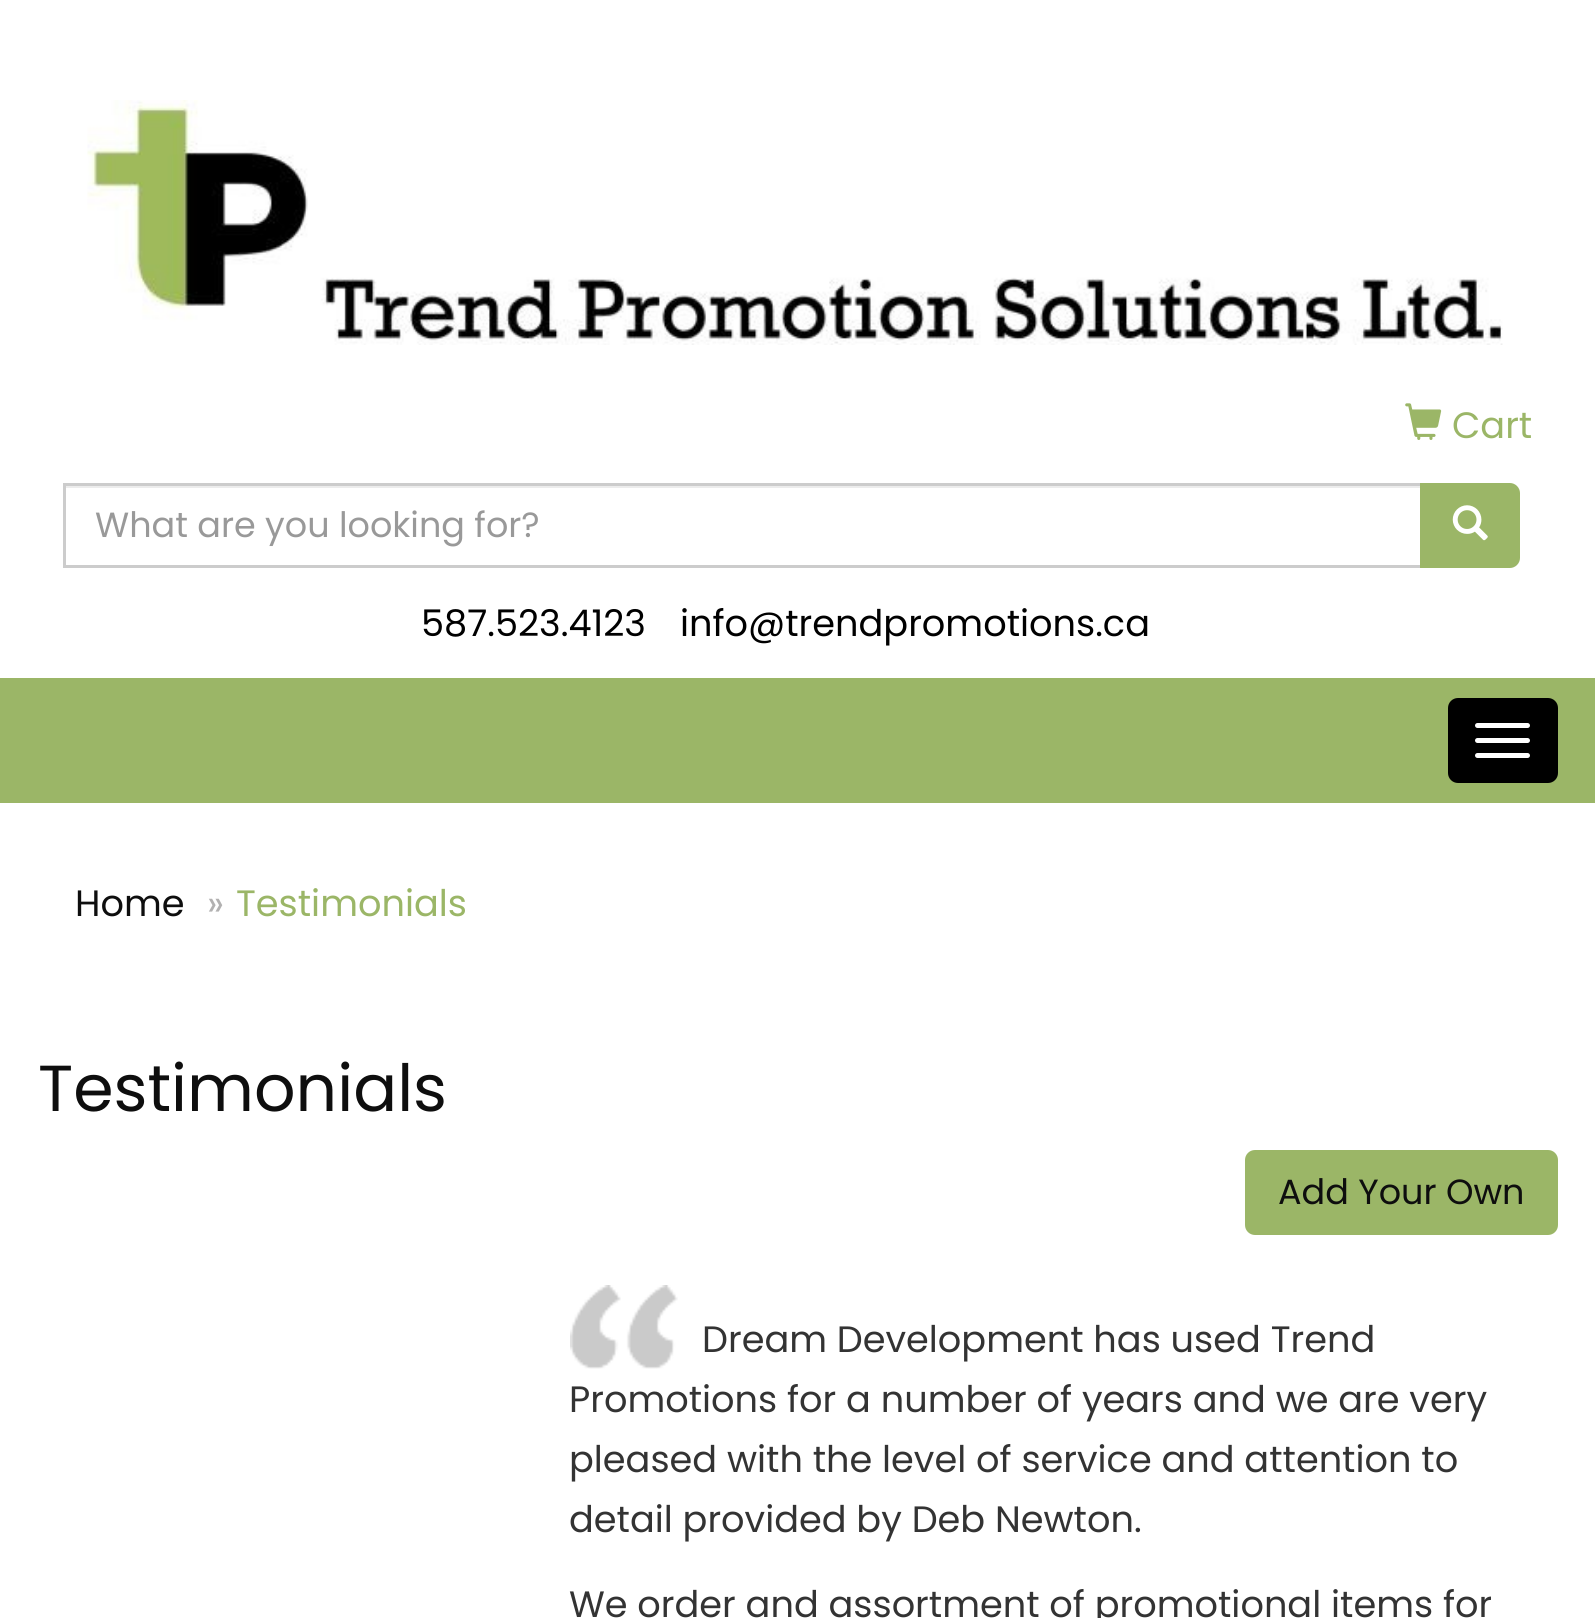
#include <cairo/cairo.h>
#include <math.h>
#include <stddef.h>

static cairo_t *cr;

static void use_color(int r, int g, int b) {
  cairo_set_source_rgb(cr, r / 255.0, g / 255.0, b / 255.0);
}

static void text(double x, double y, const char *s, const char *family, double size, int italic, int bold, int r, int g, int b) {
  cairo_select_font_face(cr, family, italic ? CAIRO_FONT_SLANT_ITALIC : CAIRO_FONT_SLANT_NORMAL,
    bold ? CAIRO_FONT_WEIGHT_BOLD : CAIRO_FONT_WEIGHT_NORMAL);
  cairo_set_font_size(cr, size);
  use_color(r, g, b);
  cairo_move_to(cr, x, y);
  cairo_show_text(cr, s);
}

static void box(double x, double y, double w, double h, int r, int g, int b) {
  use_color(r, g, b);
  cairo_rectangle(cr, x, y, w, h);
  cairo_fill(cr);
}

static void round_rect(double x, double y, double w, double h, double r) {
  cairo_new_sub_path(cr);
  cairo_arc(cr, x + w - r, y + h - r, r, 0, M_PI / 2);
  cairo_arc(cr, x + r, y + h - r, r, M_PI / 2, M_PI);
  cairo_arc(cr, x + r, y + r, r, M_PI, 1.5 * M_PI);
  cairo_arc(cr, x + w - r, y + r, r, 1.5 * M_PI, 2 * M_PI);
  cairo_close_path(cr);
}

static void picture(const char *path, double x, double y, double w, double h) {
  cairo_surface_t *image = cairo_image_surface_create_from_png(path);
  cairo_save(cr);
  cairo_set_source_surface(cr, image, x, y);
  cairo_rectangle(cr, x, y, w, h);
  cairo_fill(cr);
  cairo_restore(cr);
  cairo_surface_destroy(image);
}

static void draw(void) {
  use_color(255, 255, 255);
  cairo_paint(cr);
  picture("img_01.png", 87, 100, 1416, 245);
  picture("img_02.png", 1405, 403, 37, 37);
  box(65, 486, 1355, 2, 236, 236, 236);
  cairo_rectangle(cr, 64.5, 484.5, 1357, 82);
  use_color(204, 204, 204);
  cairo_set_line_width(cr, 3);
  cairo_stroke(cr);
  use_color(155, 182, 103);
  cairo_new_path(cr);
  cairo_move_to(cr, 1421.5, 484.5);
  cairo_line_to(cr, 1510, 484.5);
  cairo_curve_to(cr, 1514.5, 484.5, 1518.5, 488.5, 1518.5, 493);
  cairo_line_to(cr, 1518.5, 558);
  cairo_curve_to(cr, 1518.5, 562.5, 1514.5, 566.5, 1510, 566.5);
  cairo_line_to(cr, 1421.5, 566.5);
  cairo_close_path(cr);
  cairo_fill_preserve(cr);
  cairo_stroke(cr);
  picture("img_03.png", 1452, 505, 36, 36);
  box(0, 678, 1595, 125, 155, 182, 103);
  use_color(0, 0, 0);
  round_rect(1449.5, 699.5, 107, 82, 8.5);
  cairo_fill_preserve(cr);
  cairo_stroke(cr);
  use_color(255, 255, 255);
  round_rect(1475, 723, 55, 5, 2.5);
  cairo_fill(cr);
  round_rect(1475, 738, 55, 5, 2.5);
  cairo_fill(cr);
  round_rect(1475, 753, 55, 5, 2.5);
  cairo_fill(cr);
  use_color(155, 182, 103);
  round_rect(1246.5, 1151.5, 310, 82, 8.5);
  cairo_fill_preserve(cr);
  cairo_stroke(cr);
  picture("img_04.png", 570, 1285, 108, 84);
  text(1452, 438, "Cart", "Poppins", 36.7, 0, 0, 155, 182, 103);
  text(95, 537, "What are you looking for?", "Poppins", 35, 0, 0, 153, 153, 153);
  text(421, 636, "587.523.4123", "Poppins", 36.7, 0, 0, 0, 0, 0);
  text(680, 636, "info@trendpromotions.ca", "Poppins", 36.7, 0, 0, 0, 0, 0);
  text(75, 916, "Home", "Poppins", 36.7, 0, 0, 14, 14, 14);
  text(207, 916, "»", "Poppins", 36.7, 0, 0, 178, 177, 177);
  text(236, 916, "Testimonials", "Poppins", 36.7, 0, 0, 155, 182, 103);
  text(38, 1111, "Testimonials", "Poppins", 65, 0, 0, 14, 14, 14);
  text(1278, 1204, "Add Your Own", "Poppins", 35, 0, 0, 14, 14, 14);
  text(702, 1352, "Dream Development has used Trend", "Poppins", 36.7, 0, 0, 51, 51, 51);
  text(569, 1412, "Promotions for a number of years and we are very", "Poppins", 36.7, 0, 0, 51, 51, 51);
  text(569, 1472, "pleased with the level of service and attention to", "Poppins", 36.7, 0, 0, 51, 51, 51);
  text(569, 1532, "detail provided by Deb Newton.", "Poppins", 36.7, 0, 0, 51, 51, 51);
  text(569, 1617, "We order and assortment of promotional items for", "Poppins", 36.7, 0, 0, 51, 51, 51);
}

int main(void) {
  cairo_surface_t *surface = cairo_image_surface_create(CAIRO_FORMAT_RGB24, 1595, 1618);
  cr = cairo_create(surface);
  cairo_font_options_t *options = cairo_font_options_create();
  cairo_font_options_set_hint_metrics(options, CAIRO_HINT_METRICS_OFF);
  cairo_font_options_set_hint_style(options, CAIRO_HINT_STYLE_NONE);
  cairo_set_font_options(cr, options);
  cairo_set_miter_limit(cr, 4);
  draw();
  cairo_surface_write_to_png(surface, "out.png");
  cairo_font_options_destroy(options);
  cairo_destroy(cr);
  cairo_surface_destroy(surface);
  return 0;
}
